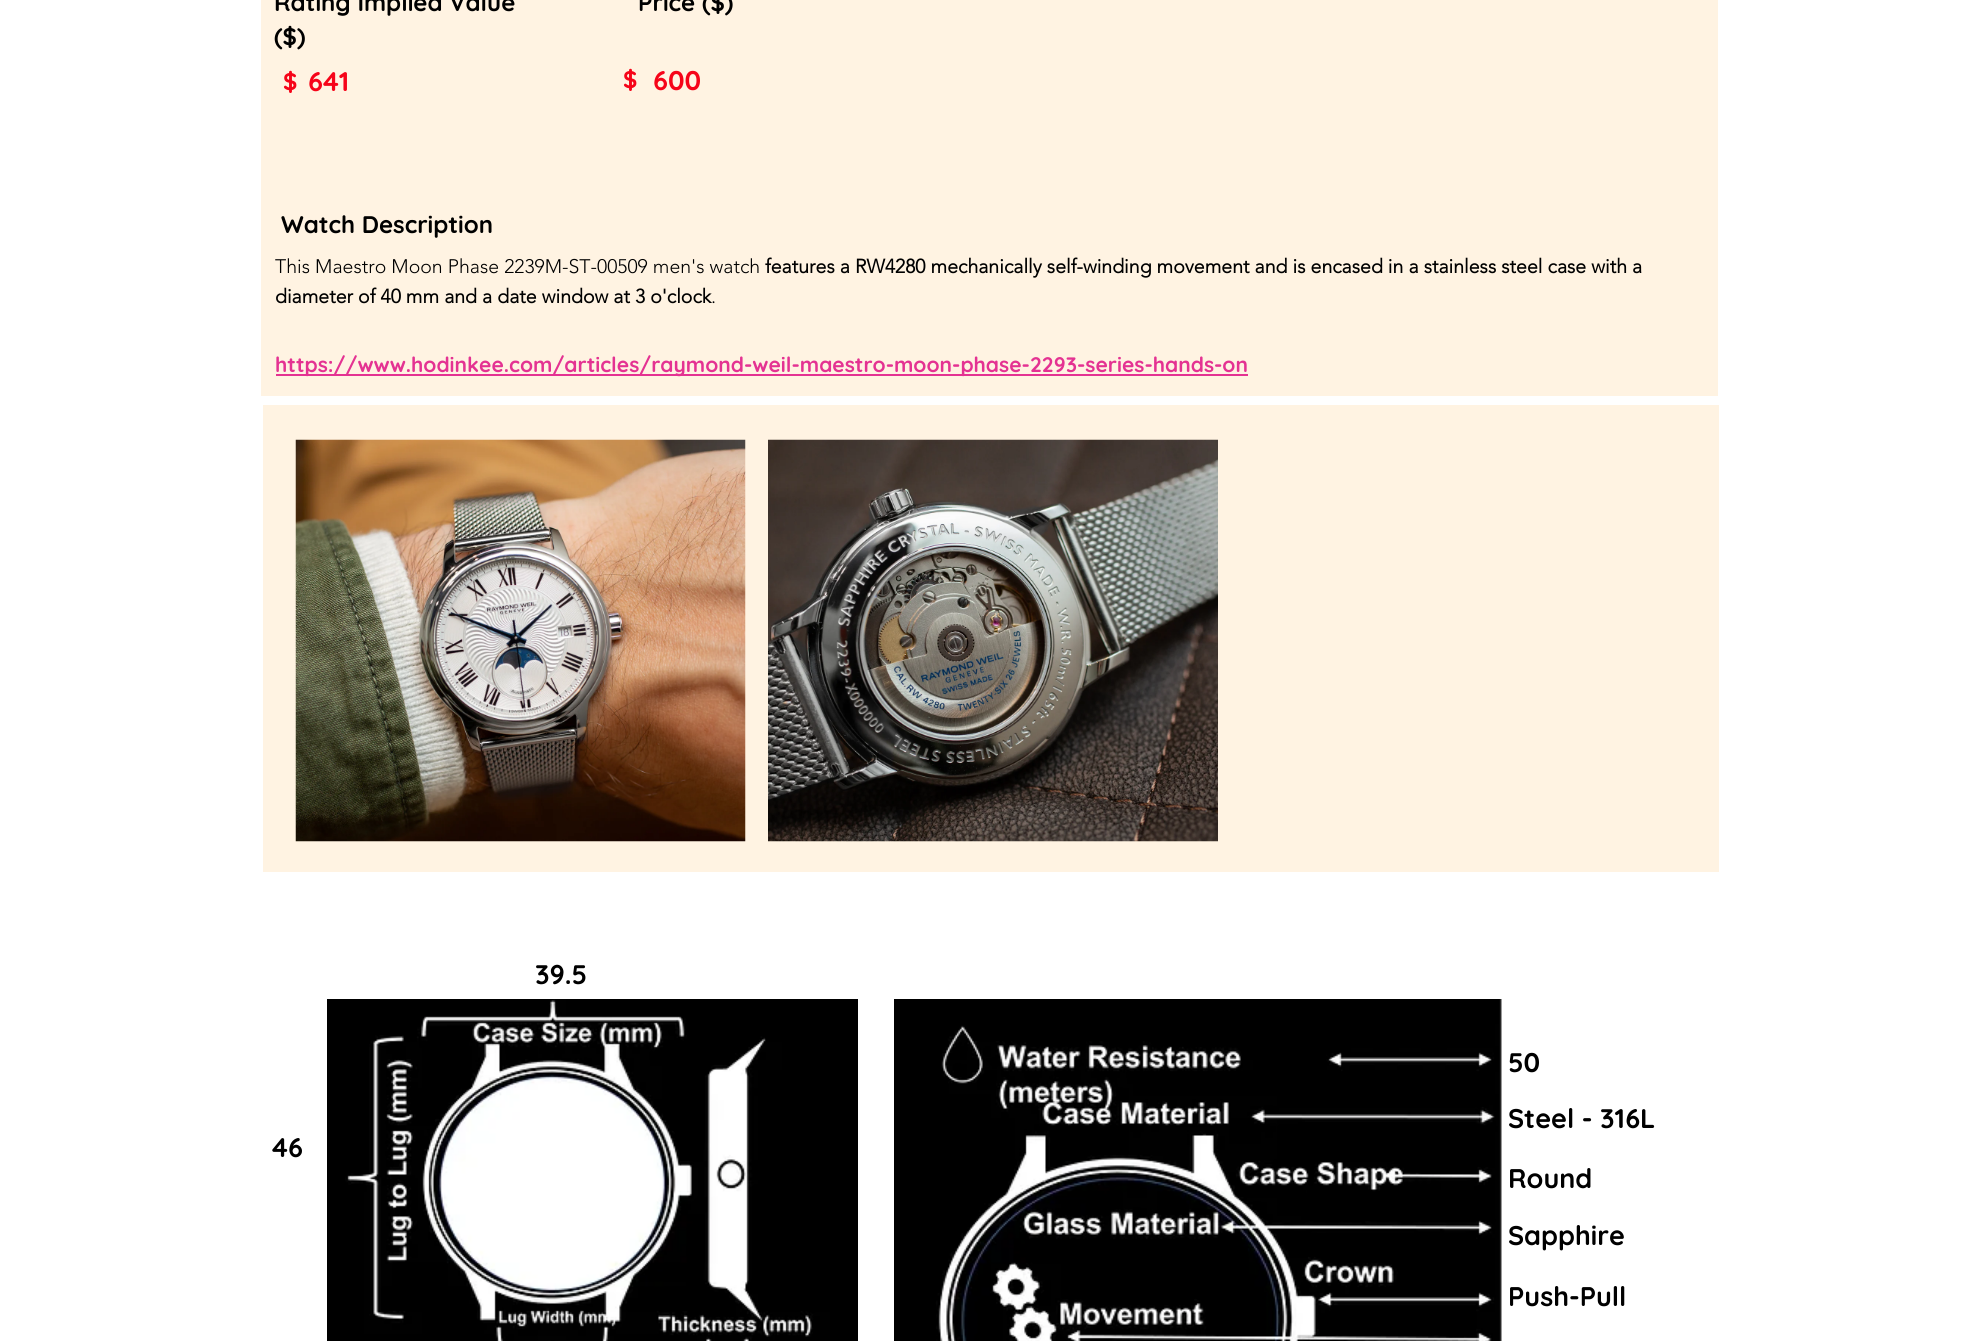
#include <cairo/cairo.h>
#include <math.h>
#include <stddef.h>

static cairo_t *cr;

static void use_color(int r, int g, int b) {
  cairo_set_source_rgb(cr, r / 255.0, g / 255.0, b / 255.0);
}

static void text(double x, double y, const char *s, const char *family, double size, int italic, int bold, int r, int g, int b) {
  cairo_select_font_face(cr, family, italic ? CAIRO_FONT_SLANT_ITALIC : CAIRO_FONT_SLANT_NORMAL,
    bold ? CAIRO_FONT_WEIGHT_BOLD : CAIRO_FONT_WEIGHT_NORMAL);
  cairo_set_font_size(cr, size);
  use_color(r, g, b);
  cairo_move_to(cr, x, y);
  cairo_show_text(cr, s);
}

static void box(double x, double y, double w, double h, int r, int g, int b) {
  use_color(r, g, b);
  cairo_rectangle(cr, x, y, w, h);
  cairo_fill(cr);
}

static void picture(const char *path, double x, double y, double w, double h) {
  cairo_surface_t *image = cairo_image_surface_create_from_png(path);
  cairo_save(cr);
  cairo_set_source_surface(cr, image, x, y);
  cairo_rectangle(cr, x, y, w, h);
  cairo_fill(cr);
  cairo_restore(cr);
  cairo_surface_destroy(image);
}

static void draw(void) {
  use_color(255, 255, 255);
  cairo_paint(cr);
  box(261, 0, 1457, 396, 255, 243, 226);
  box(276, 374, 972, 2, 228, 50, 146);
  box(263, 405, 1456, 467, 255, 243, 226);
  picture("img_01.png", 295, 439, 451, 403);
  picture("img_02.png", 768, 439, 450, 403);
  picture("img_03.png", 327, 999, 531, 342);
  picture("img_04.png", 894, 999, 608, 342);
  text(274, 11, "Rating Implied Value", "Quicksand", 24, 0, 1, 0, 0, 0);
  text(274, 45, "($)", "Quicksand", 24, 0, 1, 0, 0, 0);
  text(638, 11, "Price ($)", "Quicksand", 24, 0, 1, 0, 0, 0);
  text(283, 90, "$", "Quicksand", 24, 0, 1, 246, 4, 25);
  text(308, 91, "641", "Quicksand", 27, 0, 1, 246, 4, 25);
  text(623, 88, "$", "Quicksand", 24, 0, 1, 246, 4, 25);
  text(653, 90, "600", "Quicksand", 27, 0, 1, 246, 4, 25);
  text(281, 233, "Watch Description", "Quicksand", 24, 0, 1, 0, 0, 0);
  text(275, 273, "This Maestro Moon Phase 2239M-ST-00509 men's watch", "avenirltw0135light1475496 Light", 19.5, 0, 0, 0, 0, 0);
  text(765, 273, "features a RW4280 mechanically self-winding movement and is encased in a stainless steel case with a", "avenirltw0135light1475496", 19.5, 0, 1, 0, 0, 0);
  text(275, 303, "diameter of 40 mm and a date window at 3 o'clock", "avenirltw0135light1475496", 19.5, 0, 1, 0, 0, 0);
  text(711, 303, ".", "avenirltw0135light1475496 Light", 19.5, 0, 0, 0, 0, 0);
  text(275, 372, "https://www.hodinkee.com/articles/raymond-weil-maestro-moon-phase-2293-series-hands-on", "Quicksand", 21, 0, 1, 228, 50, 146);
  text(535, 984, "39.5", "Quicksand", 27, 0, 1, 0, 0, 0);
  text(272, 1157, "46", "Quicksand", 27, 0, 1, 0, 0, 0);
  text(1508, 1072, "50", "Quicksand", 27, 0, 1, 0, 0, 0);
  text(1508, 1128, "Steel - 316L", "Quicksand", 27, 0, 1, 0, 0, 0);
  text(1508, 1188, "Round", "Quicksand", 27, 0, 1, 0, 0, 0);
  text(1508, 1245, "Sapphire", "Quicksand", 27, 0, 1, 0, 0, 0);
  text(1508, 1306, "Push-Pull", "Quicksand", 27, 0, 1, 0, 0, 0);
}

int main(void) {
  cairo_surface_t *surface = cairo_image_surface_create(CAIRO_FORMAT_RGB24, 1981, 1341);
  cr = cairo_create(surface);
  cairo_font_options_t *options = cairo_font_options_create();
  cairo_font_options_set_hint_metrics(options, CAIRO_HINT_METRICS_OFF);
  cairo_font_options_set_hint_style(options, CAIRO_HINT_STYLE_NONE);
  cairo_set_font_options(cr, options);
  cairo_set_miter_limit(cr, 4);
  draw();
  cairo_surface_write_to_png(surface, "out.png");
  cairo_font_options_destroy(options);
  cairo_destroy(cr);
  cairo_surface_destroy(surface);
  return 0;
}
